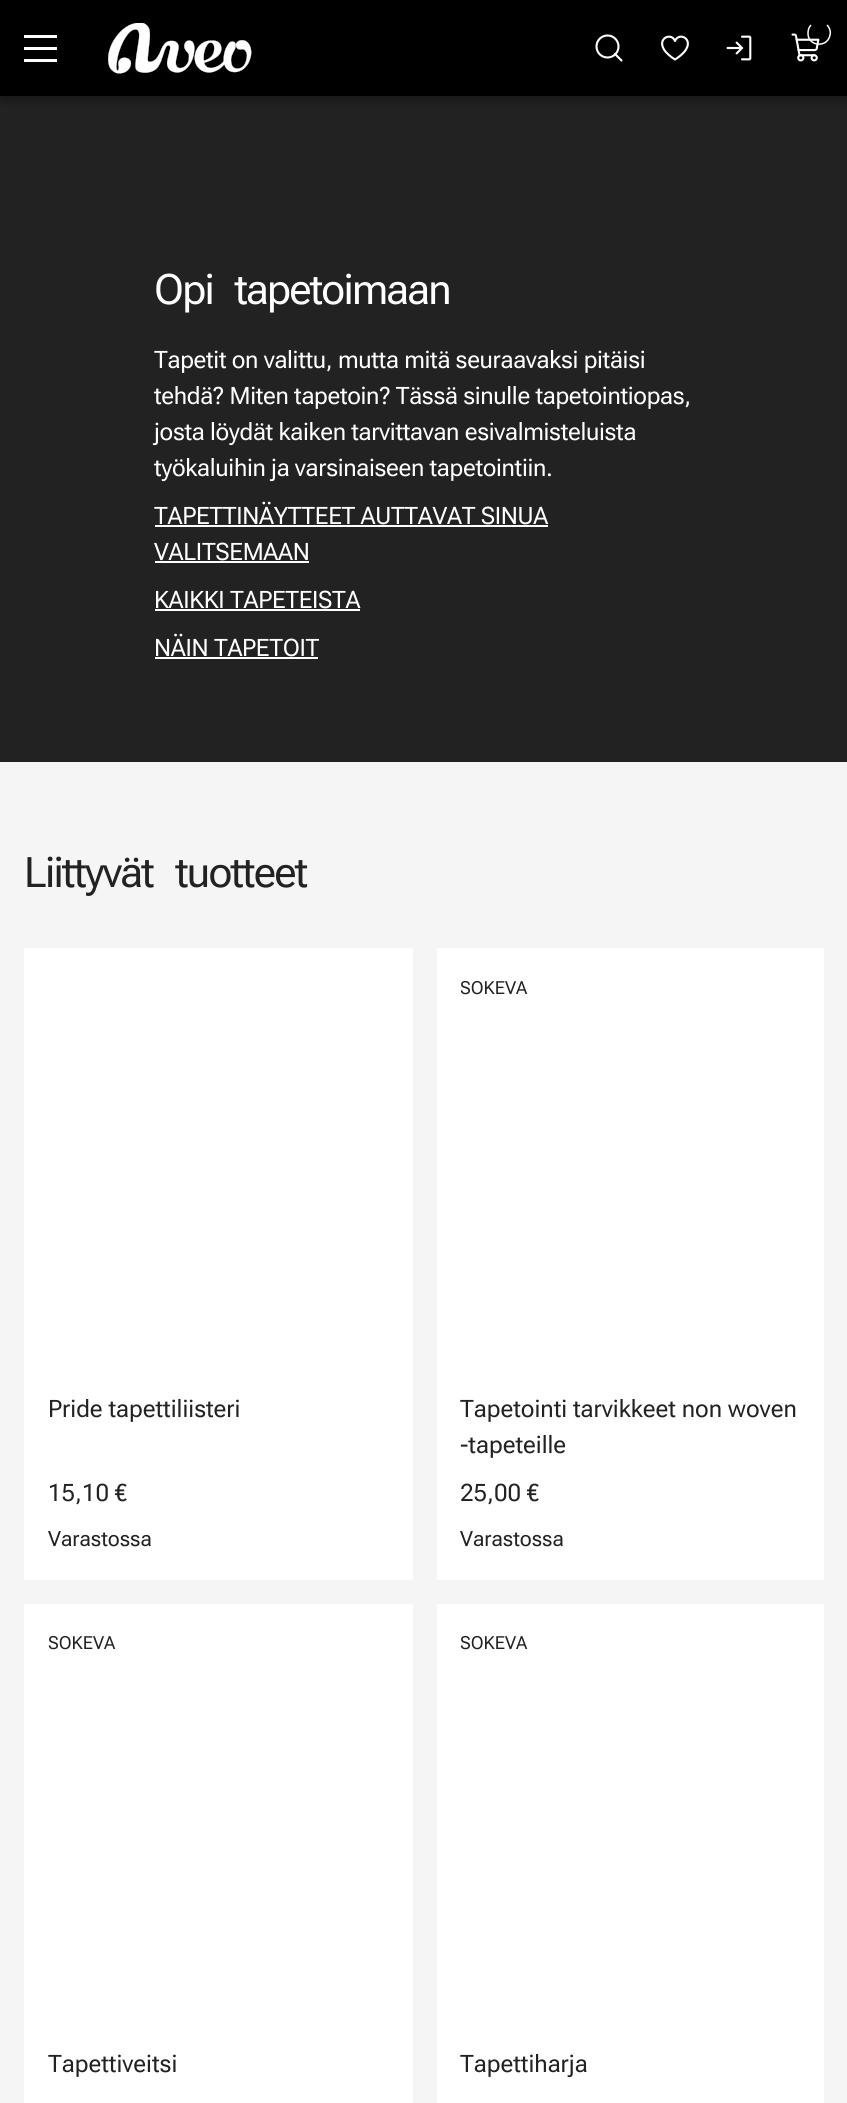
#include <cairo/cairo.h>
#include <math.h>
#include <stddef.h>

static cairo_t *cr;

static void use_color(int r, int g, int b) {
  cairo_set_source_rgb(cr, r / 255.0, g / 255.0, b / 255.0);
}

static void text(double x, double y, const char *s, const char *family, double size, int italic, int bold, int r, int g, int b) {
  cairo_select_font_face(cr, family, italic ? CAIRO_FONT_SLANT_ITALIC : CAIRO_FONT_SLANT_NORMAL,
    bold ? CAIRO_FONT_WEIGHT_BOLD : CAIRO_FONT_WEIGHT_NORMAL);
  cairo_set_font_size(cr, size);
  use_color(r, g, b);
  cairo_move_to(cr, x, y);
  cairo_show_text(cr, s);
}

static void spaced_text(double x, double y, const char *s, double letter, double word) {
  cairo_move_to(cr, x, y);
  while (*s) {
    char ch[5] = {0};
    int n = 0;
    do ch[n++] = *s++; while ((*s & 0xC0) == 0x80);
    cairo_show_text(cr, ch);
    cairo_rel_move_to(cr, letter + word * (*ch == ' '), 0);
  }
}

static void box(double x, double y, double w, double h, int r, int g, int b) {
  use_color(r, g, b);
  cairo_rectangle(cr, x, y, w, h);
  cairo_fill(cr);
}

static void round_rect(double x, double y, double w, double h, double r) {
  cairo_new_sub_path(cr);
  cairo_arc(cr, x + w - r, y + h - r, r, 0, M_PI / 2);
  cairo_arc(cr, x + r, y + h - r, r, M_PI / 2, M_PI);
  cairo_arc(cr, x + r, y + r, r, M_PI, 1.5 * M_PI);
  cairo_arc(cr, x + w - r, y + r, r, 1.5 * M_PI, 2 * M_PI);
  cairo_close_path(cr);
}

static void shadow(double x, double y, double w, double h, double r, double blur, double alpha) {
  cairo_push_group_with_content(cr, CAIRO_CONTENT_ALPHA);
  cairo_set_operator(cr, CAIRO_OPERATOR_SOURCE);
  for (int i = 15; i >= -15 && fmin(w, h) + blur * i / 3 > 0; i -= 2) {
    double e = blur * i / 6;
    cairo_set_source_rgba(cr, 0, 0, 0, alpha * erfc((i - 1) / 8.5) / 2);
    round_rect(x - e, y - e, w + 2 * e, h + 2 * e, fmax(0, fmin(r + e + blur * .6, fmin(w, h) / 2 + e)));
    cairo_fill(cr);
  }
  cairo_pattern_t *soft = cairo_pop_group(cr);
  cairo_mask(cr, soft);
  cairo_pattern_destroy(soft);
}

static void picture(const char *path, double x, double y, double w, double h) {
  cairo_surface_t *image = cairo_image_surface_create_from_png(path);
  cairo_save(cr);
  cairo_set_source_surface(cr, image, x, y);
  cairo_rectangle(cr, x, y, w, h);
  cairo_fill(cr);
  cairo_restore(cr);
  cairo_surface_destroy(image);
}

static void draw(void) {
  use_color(245, 245, 245);
  cairo_paint(cr);
  box(0, 96, 847, 666, 34, 34, 34);
  use_color(0, 0, 0);
  shadow(0, 6, 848, 96, 0, 3, 0.25);
  box(0, 0, 847, 96, 0, 0, 0);
  box(24, 35, 33, 3, 255, 255, 255);
  box(24, 47, 33, 3, 255, 255, 255);
  box(24, 59, 33, 3, 255, 255, 255);
  picture("img_01.png", 108, 23, 144, 51);
  cairo_arc(cr, 607.5, 46.5, 11, 0, 2 * M_PI);
  cairo_set_line_width(cr, 2.1);
  cairo_stroke(cr);
  cairo_new_path(cr);
  cairo_move_to(cr, 615, 54);
  cairo_line_to(cr, 621.5, 60.5);
  cairo_set_line_cap(cr, CAIRO_LINE_CAP_ROUND);
  cairo_set_line_join(cr, CAIRO_LINE_JOIN_ROUND);
  cairo_stroke(cr);
  cairo_new_path(cr);
  cairo_move_to(cr, 675, 59.5);
  cairo_curve_to(cr, 671, 57, 666.5, 53.5, 664, 49.5);
  cairo_curve_to(cr, 657, 38, 671.5, 32, 675, 41);
  cairo_curve_to(cr, 678.5, 32, 693, 38, 686, 49.5);
  cairo_curve_to(cr, 683.5, 53.5, 679, 57, 675, 59.5);
  cairo_close_path(cr);
  cairo_stroke(cr);
  picture("img_02.png", 726, 35, 26, 26);
  picture("img_03.png", 791, 33, 29, 29);
  cairo_new_path(cr);
  cairo_move_to(cr, 827, 25);
  cairo_curve_to(cr, 829.5, 27.5, 831, 31.5, 830, 35);
  cairo_curve_to(cr, 827.5, 48.5, 807.5, 46.5, 808, 33);
  cairo_curve_to(cr, 808, 30, 809, 27, 811, 25);
  cairo_set_line_width(cr, 1.5);
  cairo_set_line_cap(cr, CAIRO_LINE_CAP_BUTT);
  cairo_set_line_join(cr, CAIRO_LINE_JOIN_MITER);
  cairo_stroke(cr);
  box(155, 525, 393, 2, 255, 255, 255);
  box(155, 561, 154, 2, 255, 255, 255);
  box(155, 609, 205, 2, 255, 255, 255);
  box(155, 657, 163, 2, 255, 255, 255);
  box(24, 948, 389, 632, 255, 255, 255);
  box(437, 948, 387, 632, 255, 255, 255);
  box(24, 1604, 389, 499, 255, 255, 255);
  box(437, 1604, 387, 499, 255, 255, 255);
  cairo_select_font_face(cr, "Roboto Flex", CAIRO_FONT_SLANT_NORMAL, CAIRO_FONT_WEIGHT_NORMAL);
  cairo_set_font_size(cr, 42);
  spaced_text(154, 304, "Opi tapetoimaan", -1.75, 13);
  cairo_set_font_size(cr, 24);
  spaced_text(154, 368, "Tapetit on valittu, mutta mitä seuraavaksi pitäisi", -0.3, 0);
  spaced_text(154, 404, "tehdä? Miten tapetoin? Tässä sinulle tapetointiopas,", -0.3, 0);
  spaced_text(154, 440, "josta löydät kaiken tarvittavan esivalmisteluista", -0.3, 0);
  spaced_text(154, 476, "työkaluihin ja varsinaiseen tapetointiin.", -0.3, 0);
  spaced_text(154, 524, "TAPETTINÄYTTEET AUTTAVAT SINUA", -0.3, 0);
  spaced_text(154, 560, "VALITSEMAAN", -0.3, 0);
  spaced_text(154, 608, "KAIKKI TAPETEISTA", -0.3, 0);
  spaced_text(154, 656, "NÄIN TAPETOIT", -0.3, 0);
  cairo_set_font_size(cr, 42);
  use_color(34, 34, 34);
  spaced_text(24, 887, "Liittyvät tuotteet", -1.75, 14);
  text(48, 1417, "Pride tapettiliisteri", "Roboto Flex", 24, 0, 0, 34, 34, 34);
  text(48, 1501, "15,10 €", "Roboto Flex", 24, 0, 0, 34, 34, 34);
  text(48, 1546, "Varastossa", "Roboto Flex", 21, 0, 0, 34, 34, 34);
  cairo_save(cr);
  cairo_rectangle(cr, 461, 975, 69, 27);
  cairo_clip(cr);
  text(460, 994, "SOKEVA", "Roboto Flex", 18, 0, 0, 34, 34, 34);
  cairo_restore(cr);
  text(460, 1417, "Tapetointi tarvikkeet non woven", "Roboto Flex", 24, 0, 0, 34, 34, 34);
  text(460, 1453, "-tapeteille", "Roboto Flex", 24, 0, 0, 34, 34, 34);
  text(460, 1501, "25,00 €", "Roboto Flex", 24, 0, 0, 34, 34, 34);
  text(460, 1546, "Varastossa", "Roboto Flex", 21, 0, 0, 34, 34, 34);
  text(48, 1649, "SOKEVA", "Roboto Flex", 18, 0, 0, 34, 34, 34);
  text(48, 2072, "Tapettiveitsi", "Roboto Flex", 24, 0, 0, 34, 34, 34);
  cairo_save(cr);
  cairo_rectangle(cr, 461, 1629, 69, 27);
  cairo_clip(cr);
  text(460, 1649, "SOKEVA", "Roboto Flex", 18, 0, 0, 34, 34, 34);
  cairo_restore(cr);
  text(460, 2072, "Tapettiharja", "Roboto Flex", 24, 0, 0, 34, 34, 34);
}

int main(void) {
  cairo_surface_t *surface = cairo_image_surface_create(CAIRO_FORMAT_RGB24, 847, 2103);
  cr = cairo_create(surface);
  cairo_font_options_t *options = cairo_font_options_create();
  cairo_font_options_set_hint_metrics(options, CAIRO_HINT_METRICS_OFF);
  cairo_font_options_set_hint_style(options, CAIRO_HINT_STYLE_NONE);
  cairo_set_font_options(cr, options);
  cairo_set_miter_limit(cr, 4);
  draw();
  cairo_surface_write_to_png(surface, "out.png");
  cairo_font_options_destroy(options);
  cairo_destroy(cr);
  cairo_surface_destroy(surface);
  return 0;
}
